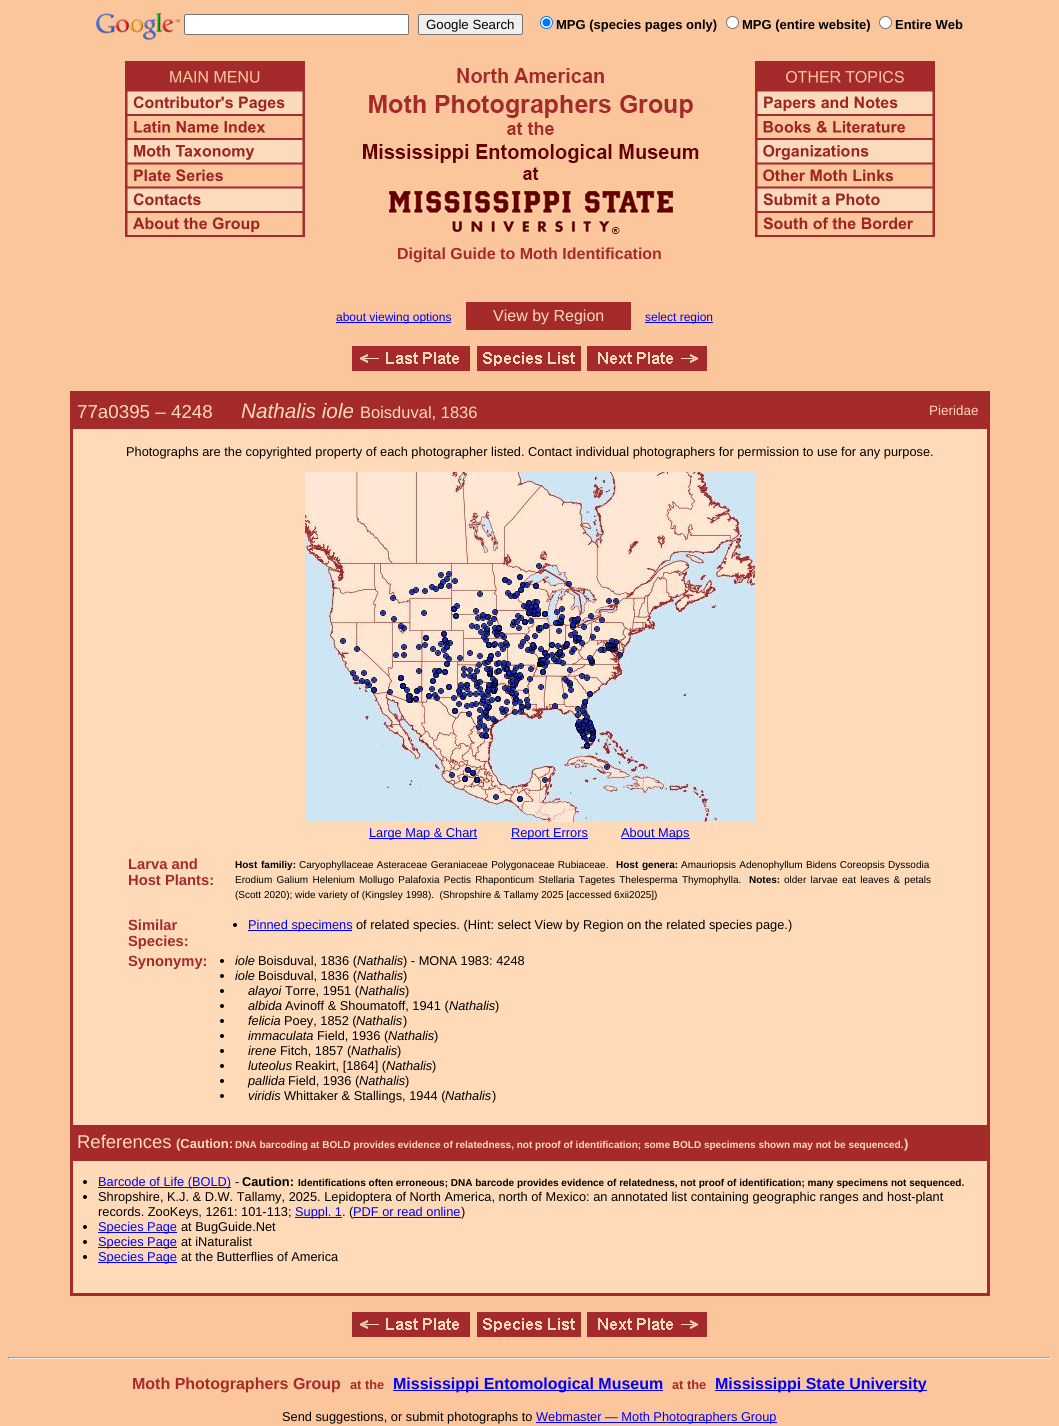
#include <cairo/cairo.h>
#include <math.h>
#include <stddef.h>

static cairo_t *cr;

static void use_color(int r, int g, int b) {
  cairo_set_source_rgb(cr, r / 255.0, g / 255.0, b / 255.0);
}

static void text(double x, double y, const char *s, const char *family, double size, int italic, int bold, int r, int g, int b) {
  cairo_select_font_face(cr, family, italic ? CAIRO_FONT_SLANT_ITALIC : CAIRO_FONT_SLANT_NORMAL,
    bold ? CAIRO_FONT_WEIGHT_BOLD : CAIRO_FONT_WEIGHT_NORMAL);
  cairo_set_font_size(cr, size);
  use_color(r, g, b);
  cairo_move_to(cr, x, y);
  cairo_show_text(cr, s);
}

static void spaced_text(double x, double y, const char *s, double letter, double word) {
  cairo_move_to(cr, x, y);
  while (*s) {
    char ch[5] = {0};
    int n = 0;
    do ch[n++] = *s++; while ((*s & 0xC0) == 0x80);
    cairo_show_text(cr, ch);
    cairo_rel_move_to(cr, letter + word * (*ch == ' '), 0);
  }
}

static void box(double x, double y, double w, double h, int r, int g, int b) {
  use_color(r, g, b);
  cairo_rectangle(cr, x, y, w, h);
  cairo_fill(cr);
}

static void round_rect(double x, double y, double w, double h, double r) {
  cairo_new_sub_path(cr);
  cairo_arc(cr, x + w - r, y + h - r, r, 0, M_PI / 2);
  cairo_arc(cr, x + r, y + h - r, r, M_PI / 2, M_PI);
  cairo_arc(cr, x + r, y + r, r, M_PI, 1.5 * M_PI);
  cairo_arc(cr, x + w - r, y + r, r, 1.5 * M_PI, 2 * M_PI);
  cairo_close_path(cr);
}

static void picture(const char *path, double x, double y, double w, double h) {
  cairo_surface_t *image = cairo_image_surface_create_from_png(path);
  cairo_save(cr);
  cairo_set_source_surface(cr, image, x, y);
  cairo_rectangle(cr, x, y, w, h);
  cairo_fill(cr);
  cairo_restore(cr);
  cairo_surface_destroy(image);
}

static void draw(void) {
  use_color(252, 198, 156);
  cairo_paint(cr);
  picture("img_01.png", 96, 13, 84, 27);
  use_color(255, 255, 255);
  round_rect(184.5, 14.5, 224, 20, 1.5);
  cairo_fill_preserve(cr);
  use_color(118, 118, 118);
  cairo_set_line_width(cr, 1);
  cairo_stroke(cr);
  use_color(239, 239, 239);
  round_rect(418.5, 14.5, 104, 20, 1.5);
  cairo_fill_preserve(cr);
  use_color(118, 118, 118);
  cairo_stroke(cr);
  use_color(255, 255, 255);
  cairo_arc(cr, 546.5, 22.5, 6, 0, 2 * M_PI);
  cairo_fill_preserve(cr);
  use_color(0, 117, 255);
  cairo_stroke(cr);
  cairo_arc(cr, 546.5, 22.5, 4, 0, 2 * M_PI);
  cairo_fill(cr);
  use_color(255, 255, 255);
  cairo_arc(cr, 732.5, 22.5, 6, 0, 2 * M_PI);
  cairo_fill_preserve(cr);
  use_color(118, 118, 118);
  cairo_stroke(cr);
  use_color(255, 255, 255);
  cairo_arc(cr, 885.5, 22.5, 6, 0, 2 * M_PI);
  cairo_fill_preserve(cr);
  use_color(118, 118, 118);
  cairo_stroke(cr);
  picture("img_02.png", 125, 61, 180, 176);
  picture("img_03.png", 755, 61, 180, 176);
  picture("img_04.png", 363, 68, 336, 166);
  box(336, 322, 115, 1, 0, 0, 255);
  box(466, 302, 165, 28, 165, 42, 42);
  box(645, 322, 68, 1, 0, 0, 255);
  picture("img_05.png", 352, 346, 118, 25);
  picture("img_06.png", 477, 346, 104, 25);
  picture("img_07.png", 587, 346, 120, 25);
  box(73, 429, 914, 864, 255, 218, 185);
  box(70, 391, 920, 3, 165, 42, 42);
  box(987, 391, 3, 905, 165, 42, 42);
  box(70, 1293, 920, 3, 165, 42, 42);
  box(70, 391, 3, 905, 165, 42, 42);
  box(73, 394, 914, 35, 165, 42, 42);
  picture("img_08.png", 305, 472, 450, 350);
  box(369, 838, 108, 1, 0, 0, 255);
  box(511, 838, 77, 1, 0, 0, 255);
  box(621, 838, 69, 1, 0, 0, 255);
  use_color(0, 0, 0);
  cairo_arc(cr, 235, 925, 2, 0, 2 * M_PI);
  cairo_fill(cr);
  box(248, 930, 104, 1, 0, 0, 255);
  use_color(0, 0, 0);
  cairo_arc(cr, 222, 961, 2, 0, 2 * M_PI);
  cairo_fill(cr);
  cairo_arc(cr, 222, 976, 2, 0, 2 * M_PI);
  cairo_fill(cr);
  cairo_arc(cr, 222, 991, 2, 0, 2 * M_PI);
  cairo_fill(cr);
  cairo_arc(cr, 222, 1006, 2, 0, 2 * M_PI);
  cairo_fill(cr);
  cairo_arc(cr, 222, 1021, 2, 0, 2 * M_PI);
  cairo_fill(cr);
  cairo_arc(cr, 222, 1036, 2, 0, 2 * M_PI);
  cairo_fill(cr);
  cairo_arc(cr, 222, 1051, 2, 0, 2 * M_PI);
  cairo_fill(cr);
  cairo_arc(cr, 222, 1066, 2, 0, 2 * M_PI);
  cairo_fill(cr);
  cairo_arc(cr, 222, 1081, 2, 0, 2 * M_PI);
  cairo_fill(cr);
  cairo_arc(cr, 222, 1096, 2, 0, 2 * M_PI);
  cairo_fill(cr);
  box(73, 1125, 914, 36, 165, 42, 42);
  use_color(0, 0, 0);
  cairo_arc(cr, 85, 1182, 2, 0, 2 * M_PI);
  cairo_fill(cr);
  box(98, 1187, 133, 1, 0, 0, 255);
  use_color(0, 0, 0);
  cairo_arc(cr, 85, 1197, 2, 0, 2 * M_PI);
  cairo_fill(cr);
  box(295, 1217, 47, 1, 0, 0, 255);
  use_color(0, 0, 0);
  cairo_arc(cr, 85, 1227, 2, 0, 2 * M_PI);
  cairo_fill(cr);
  box(98, 1232, 79, 1, 0, 0, 255);
  use_color(0, 0, 0);
  cairo_arc(cr, 85, 1242, 2, 0, 2 * M_PI);
  cairo_fill(cr);
  box(98, 1247, 79, 1, 0, 0, 255);
  use_color(0, 0, 0);
  cairo_arc(cr, 85, 1257, 2, 0, 2 * M_PI);
  cairo_fill(cr);
  box(98, 1262, 79, 1, 0, 0, 255);
  picture("img_05.png", 352, 1312, 118, 25);
  picture("img_06.png", 477, 1312, 104, 25);
  picture("img_07.png", 587, 1312, 120, 25);
  box(8, 1357, 1043, 1, 159, 159, 159);
  box(1050, 1357, 1, 2, 238, 238, 238);
  box(8, 1358, 1043, 1, 238, 238, 238);
  box(8, 1357, 1, 2, 159, 159, 159);
  box(393, 1390, 270, 1, 0, 0, 255);
  box(715, 1390, 212, 1, 0, 0, 255);
  box(536, 1422, 241, 1, 0, 0, 255);
  text(426, 29, "Google Search", "Liberation Sans", 13.25, 0, 0, 0, 0, 0);
  text(556, 29, "MPG (species pages only)", "Liberation Sans", 13, 0, 1, 0, 0, 0);
  text(742, 29, "MPG (entire website)", "Liberation Sans", 13, 0, 1, 0, 0, 0);
  text(895, 29, "Entire Web", "Liberation Sans", 13, 0, 1, 0, 0, 0);
  text(397, 259, "Digital Guide to Moth Identification", "Liberation Sans", 16, 0, 1, 165, 42, 42);
  text(336, 321, "about viewing options", "Liberation Sans", 12, 0, 0, 0, 0, 255);
  text(493, 321, "View by Region", "Liberation Sans", 16, 0, 0, 255, 218, 185);
  text(645, 321, "select region", "Liberation Sans", 12, 0, 0, 0, 0, 255);
  text(77, 418, "77a0395 –", "Liberation Sans", 18.75, 0, 0, 255, 218, 185);
  text(171, 418, "4248", "Liberation Sans", 18.75, 0, 0, 255, 218, 185);
  text(241, 418, "Nathalis iole", "Liberation Sans", 20.75, 1, 0, 255, 218, 185);
  text(360, 418, "Boisduval, 1836", "Liberation Sans", 16.5, 0, 0, 255, 218, 185);
  text(929, 415, "Pieridae", "Liberation Sans", 13.5, 0, 0, 255, 218, 185);
  text(126, 456, "Photographs are the copyrighted property of each photographer listed. Contact individual photographers for permission to use for any purpose.", "Liberation Sans", 12.8, 0, 0, 0, 0, 0);
  text(369, 837, "Large Map & Chart", "Liberation Sans", 12.8, 0, 0, 0, 0, 255);
  text(511, 837, "Report Errors", "Liberation Sans", 12.8, 0, 0, 0, 0, 255);
  text(621, 837, "About Maps", "Liberation Sans", 12.8, 0, 0, 0, 0, 255);
  text(128, 869, "Larva and", "Liberation Sans", 14.75, 0, 1, 165, 42, 42);
  text(128, 885, "Host Plants:", "Liberation Sans", 14.75, 0, 1, 165, 42, 42);
  cairo_set_font_size(cr, 10);
  use_color(0, 0, 0);
  spaced_text(235, 868, "Host familiy:", 0, 1);
  cairo_select_font_face(cr, "Liberation Sans", CAIRO_FONT_SLANT_NORMAL, CAIRO_FONT_WEIGHT_NORMAL);
  spaced_text(299, 868, "Caryophyllaceae Asteraceae Geraniaceae Polygonaceae Rubiaceae.", 0, 0.5);
  cairo_select_font_face(cr, "Liberation Sans", CAIRO_FONT_SLANT_NORMAL, CAIRO_FONT_WEIGHT_BOLD);
  spaced_text(616, 868, "Host genera:", 0, 1);
  cairo_select_font_face(cr, "Liberation Sans", CAIRO_FONT_SLANT_NORMAL, CAIRO_FONT_WEIGHT_NORMAL);
  spaced_text(681, 868, "Amauriopsis Adenophyllum Bidens Coreopsis Dyssodia", 0, 0.5);
  spaced_text(235, 883, "Erodium Galium Helenium Mollugo Palafoxia Pectis Rhaponticum Stellaria Tagetes Thelesperma Thymophylla.", 0, 1.5);
  text(749, 883, "Notes:", "Liberation Sans", 10, 0, 1, 0, 0, 0);
  cairo_select_font_face(cr, "Liberation Sans", CAIRO_FONT_SLANT_NORMAL, CAIRO_FONT_WEIGHT_NORMAL);
  spaced_text(784, 883, "older larvae eat leaves & petals", 0, 1.5);
  text(235, 898, "(Scott 2020); wide variety of (Kingsley 1998).  (Shropshire & Tallamy 2025 [accessed 6xii2025])", "Liberation Sans", 10, 0, 0, 0, 0, 0);
  text(128, 930, "Similar", "Liberation Sans", 14.75, 0, 1, 165, 42, 42);
  text(128, 946, "Species:", "Liberation Sans", 14.75, 0, 1, 165, 42, 42);
  text(248, 929, "Pinned specimens", "Liberation Sans", 12.8, 0, 0, 0, 0, 255);
  text(356, 929, "of related species. (Hint: select View by Region on the related species page.)", "Liberation Sans", 12.8, 0, 0, 0, 0, 0);
  text(128, 966, "Synonymy:", "Liberation Sans", 14.75, 0, 1, 165, 42, 42);
  text(235, 965, "iole", "Liberation Sans", 12.8, 1, 0, 0, 0, 0);
  text(258, 965, "Boisduval, 1836 (", "Liberation Sans", 12.8, 0, 0, 0, 0, 0);
  text(357, 965, "Nathalis", "Liberation Sans", 12.8, 1, 0, 0, 0, 0);
  text(403, 965, ") - MONA 1983: 4248", "Liberation Sans", 12.8, 0, 0, 0, 0, 0);
  text(235, 980, "iole", "Liberation Sans", 12.8, 1, 0, 0, 0, 0);
  text(258, 980, "Boisduval, 1836 (", "Liberation Sans", 12.8, 0, 0, 0, 0, 0);
  text(357, 980, "Nathalis", "Liberation Sans", 12.8, 1, 0, 0, 0, 0);
  text(403, 980, ")", "Liberation Sans", 12.8, 0, 0, 0, 0, 0);
  text(248, 995, "alayoi", "Liberation Sans", 12.8, 1, 0, 0, 0, 0);
  text(285, 995, "Torre, 1951 (", "Liberation Sans", 12.8, 0, 0, 0, 0, 0);
  text(359, 995, "Nathalis", "Liberation Sans", 12.8, 1, 0, 0, 0, 0);
  text(405, 995, ")", "Liberation Sans", 12.8, 0, 0, 0, 0, 0);
  text(248, 1010, "albida", "Liberation Sans", 12.8, 1, 0, 0, 0, 0);
  text(285, 1010, "Avinoff & Shoumatoff, 1941 (", "Liberation Sans", 12.8, 0, 0, 0, 0, 0);
  text(449, 1010, "Nathalis", "Liberation Sans", 12.8, 1, 0, 0, 0, 0);
  text(495, 1010, ")", "Liberation Sans", 12.8, 0, 0, 0, 0, 0);
  text(248, 1025, "felicia", "Liberation Sans", 12.8, 1, 0, 0, 0, 0);
  text(284, 1025, "Poey, 1852 (", "Liberation Sans", 12.8, 0, 0, 0, 0, 0);
  text(356, 1025, "Nathalis", "Liberation Sans", 12.8, 1, 0, 0, 0, 0);
  text(403, 1025, ")", "Liberation Sans", 12.8, 0, 0, 0, 0, 0);
  text(248, 1040, "immaculata", "Liberation Sans", 12.8, 1, 0, 0, 0, 0);
  text(317, 1040, "Field, 1936 (", "Liberation Sans", 12.8, 0, 0, 0, 0, 0);
  text(388, 1040, "Nathalis", "Liberation Sans", 12.8, 1, 0, 0, 0, 0);
  text(434, 1040, ")", "Liberation Sans", 12.8, 0, 0, 0, 0, 0);
  text(248, 1055, "irene", "Liberation Sans", 12.8, 1, 0, 0, 0, 0);
  text(280, 1055, "Fitch, 1857 (", "Liberation Sans", 12.8, 0, 0, 0, 0, 0);
  text(351, 1055, "Nathalis", "Liberation Sans", 12.8, 1, 0, 0, 0, 0);
  text(397, 1055, ")", "Liberation Sans", 12.8, 0, 0, 0, 0, 0);
  text(248, 1070, "luteolus", "Liberation Sans", 12.8, 1, 0, 0, 0, 0);
  text(295, 1070, "Reakirt, [1864] (", "Liberation Sans", 12.8, 0, 0, 0, 0, 0);
  text(386, 1070, "Nathalis", "Liberation Sans", 12.8, 1, 0, 0, 0, 0);
  text(432, 1070, ")", "Liberation Sans", 12.8, 0, 0, 0, 0, 0);
  text(248, 1085, "pallida", "Liberation Sans", 12.8, 1, 0, 0, 0, 0);
  text(288, 1085, "Field, 1936 (", "Liberation Sans", 12.8, 0, 0, 0, 0, 0);
  text(359, 1085, "Nathalis", "Liberation Sans", 12.8, 1, 0, 0, 0, 0);
  text(405, 1085, ")", "Liberation Sans", 12.8, 0, 0, 0, 0, 0);
  text(248, 1100, "viridis", "Liberation Sans", 12.8, 1, 0, 0, 0, 0);
  text(284, 1100, "Whittaker & Stallings, 1944 (", "Liberation Sans", 12.8, 0, 0, 0, 0, 0);
  text(445, 1100, "Nathalis", "Liberation Sans", 12.8, 1, 0, 0, 0, 0);
  text(492, 1100, ")", "Liberation Sans", 12.8, 0, 0, 0, 0, 0);
  text(77, 1148, "References", "Liberation Sans", 18.5, 0, 0, 255, 218, 185);
  text(176, 1148, "(Caution:", "Liberation Sans", 13, 0, 1, 255, 218, 185);
  text(235, 1148, "DNA barcoding at BOLD provides evidence of relatedness, not proof of identification; some BOLD specimens shown may not be sequenced.", "Liberation Sans", 10, 0, 1, 255, 218, 185);
  text(904, 1148, ")", "Liberation Sans", 13, 0, 1, 255, 218, 185);
  text(98, 1186, "Barcode of Life (BOLD)", "Liberation Sans", 12.8, 0, 0, 0, 0, 255);
  text(235, 1186, "-", "Liberation Sans", 12.8, 0, 0, 0, 0, 0);
  text(242, 1186, "Caution:", "Liberation Sans", 12.8, 0, 1, 0, 0, 0);
  text(298, 1186, "Identifications often erroneous; DNA barcode provides evidence of relatedness, not proof of identification; many specimens not sequenced.", "Liberation Sans", 10, 0, 1, 0, 0, 0);
  text(98, 1201, "Shropshire, K.J. & D.W. Tallamy, 2025. Lepidoptera of North America, north of Mexico: an annotated list containing geographic ranges and host-plant", "Liberation Sans", 12.8, 0, 0, 0, 0, 0);
  text(98, 1216, "records. ZooKeys, 1261: 101-113;", "Liberation Sans", 12.8, 0, 0, 0, 0, 0);
  text(295, 1216, "Suppl. 1", "Liberation Sans", 12.8, 0, 0, 0, 0, 255);
  text(342, 1216, ". (", "Liberation Sans", 12.8, 0, 0, 0, 0, 0);
  text(353, 1216, "PDF or read online", "Liberation Sans", 12.8, 0, 0, 0, 0, 255);
  box(353, 1217, 108, 1, 0, 0, 255);
  text(461, 1216, ")", "Liberation Sans", 12.8, 0, 0, 0, 0, 0);
  text(98, 1231, "Species Page", "Liberation Sans", 12.8, 0, 0, 0, 0, 255);
  text(181, 1231, "at BugGuide.Net", "Liberation Sans", 12.8, 0, 0, 0, 0, 0);
  text(98, 1246, "Species Page", "Liberation Sans", 12.8, 0, 0, 0, 0, 255);
  text(181, 1246, "at iNaturalist", "Liberation Sans", 12.8, 0, 0, 0, 0, 0);
  text(98, 1261, "Species Page", "Liberation Sans", 12.8, 0, 0, 0, 0, 255);
  text(181, 1261, "at the Butterflies of America", "Liberation Sans", 12.8, 0, 0, 0, 0, 0);
  text(132, 1389, "Moth Photographers Group", "Liberation Sans", 16, 0, 1, 165, 42, 42);
  text(350, 1389, "at the", "Liberation Sans", 12.8, 0, 1, 165, 42, 42);
  text(393, 1389, "Mississippi Entomological Museum", "Liberation Sans", 16, 0, 1, 0, 0, 255);
  text(672, 1389, "at the", "Liberation Sans", 12.8, 0, 1, 165, 42, 42);
  text(715, 1389, "Mississippi State University", "Liberation Sans", 16, 0, 1, 0, 0, 255);
  text(282, 1421, "Send suggestions, or submit photographs to", "Liberation Sans", 12.8, 0, 0, 0, 0, 0);
  text(536, 1421, "Webmaster — Moth Photographers Group", "Liberation Sans", 12.8, 0, 0, 0, 0, 255);
}

int main(void) {
  cairo_surface_t *surface = cairo_image_surface_create(CAIRO_FORMAT_RGB24, 1059, 1426);
  cr = cairo_create(surface);
  cairo_font_options_t *options = cairo_font_options_create();
  cairo_font_options_set_hint_metrics(options, CAIRO_HINT_METRICS_OFF);
  cairo_font_options_set_hint_style(options, CAIRO_HINT_STYLE_NONE);
  cairo_set_font_options(cr, options);
  cairo_set_miter_limit(cr, 4);
  draw();
  cairo_surface_write_to_png(surface, "out.png");
  cairo_font_options_destroy(options);
  cairo_destroy(cr);
  cairo_surface_destroy(surface);
  return 0;
}
